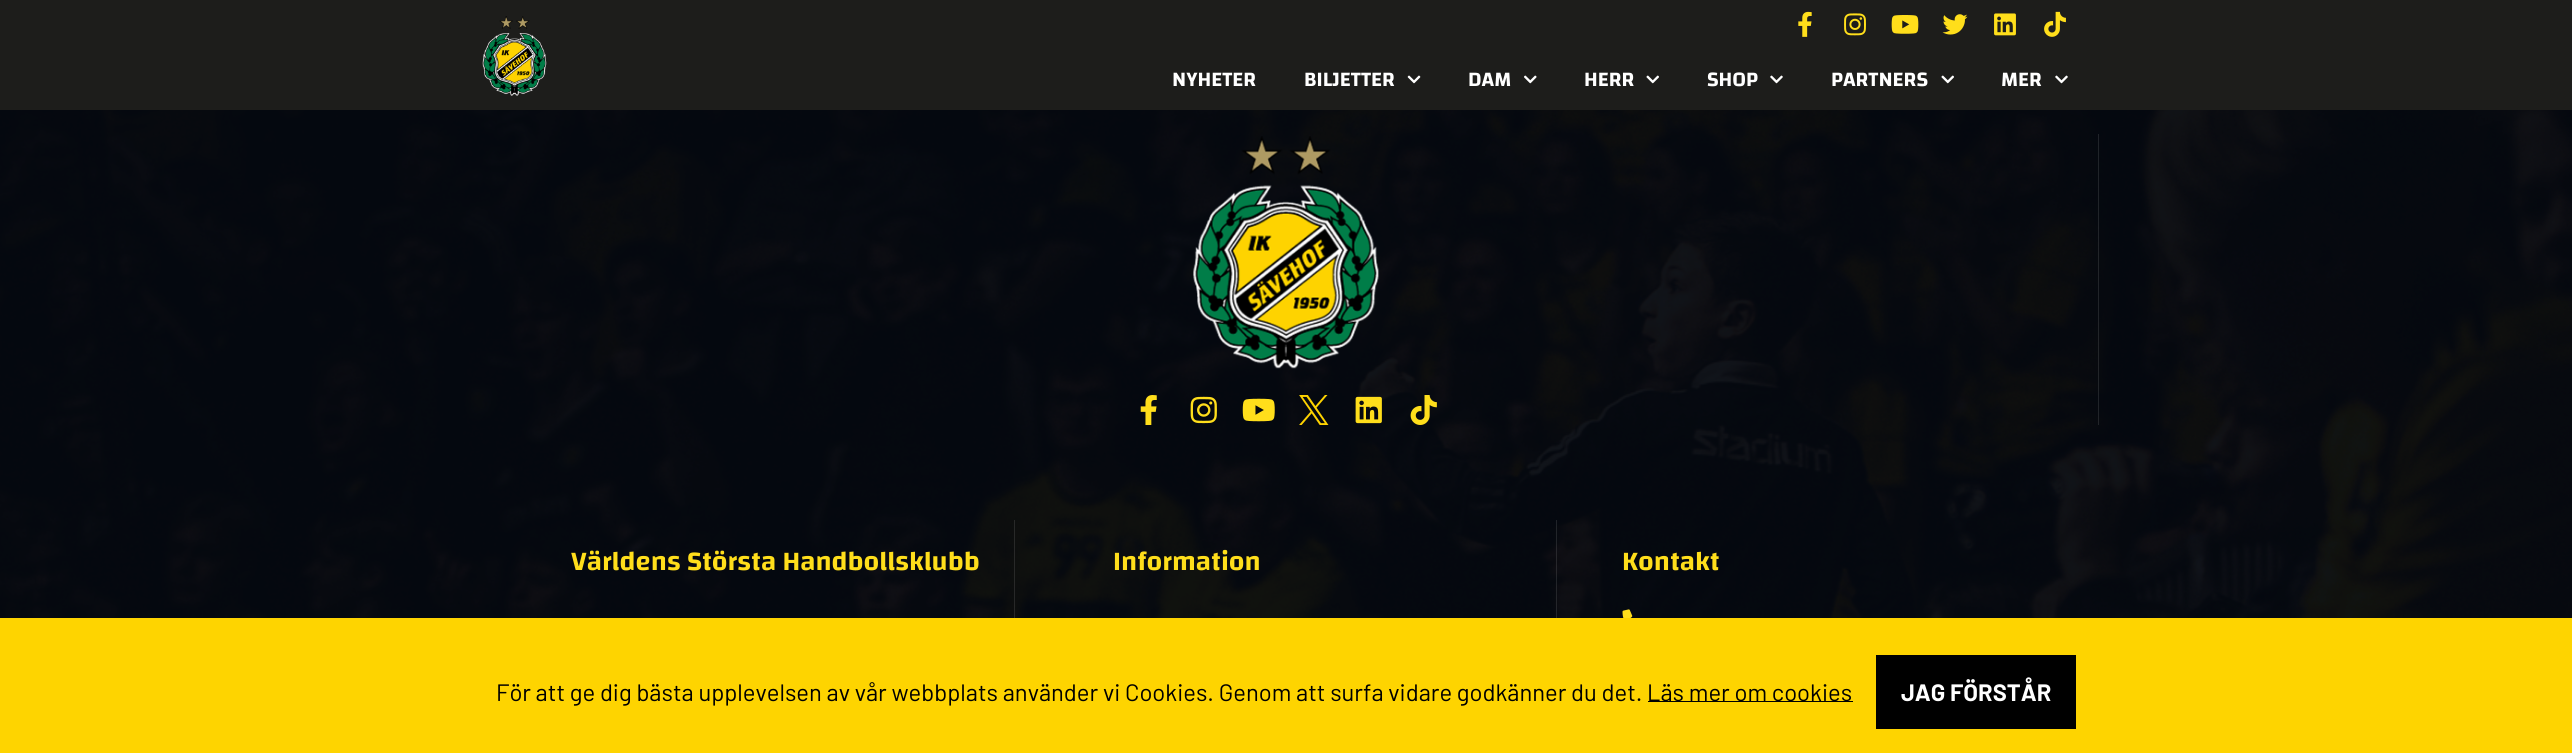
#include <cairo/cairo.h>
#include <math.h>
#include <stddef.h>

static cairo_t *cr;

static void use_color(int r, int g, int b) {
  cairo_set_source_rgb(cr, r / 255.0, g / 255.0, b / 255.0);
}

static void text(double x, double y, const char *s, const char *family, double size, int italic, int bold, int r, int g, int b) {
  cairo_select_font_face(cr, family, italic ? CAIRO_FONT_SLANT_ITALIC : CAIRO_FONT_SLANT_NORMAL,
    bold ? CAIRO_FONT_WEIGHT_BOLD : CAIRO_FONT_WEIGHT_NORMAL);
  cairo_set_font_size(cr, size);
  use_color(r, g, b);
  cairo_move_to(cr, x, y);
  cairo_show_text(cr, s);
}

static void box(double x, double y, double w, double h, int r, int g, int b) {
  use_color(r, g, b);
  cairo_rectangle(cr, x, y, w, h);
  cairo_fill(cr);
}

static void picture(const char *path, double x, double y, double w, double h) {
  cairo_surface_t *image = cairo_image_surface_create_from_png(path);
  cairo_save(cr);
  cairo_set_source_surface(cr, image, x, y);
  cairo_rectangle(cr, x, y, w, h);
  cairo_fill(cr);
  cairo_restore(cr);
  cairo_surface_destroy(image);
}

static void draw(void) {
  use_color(255, 255, 255);
  cairo_paint(cr);
  box(0, 0, 2572, 110, 29, 29, 27);
  picture("img_01.png", 482, 16, 65, 80);
  picture("img_02.png", 1798, 11, 14, 26);
  picture("img_03.png", 1844, 13, 22, 23);
  picture("img_04.png", 1891, 15, 28, 19);
  picture("img_05.png", 1942, 14, 26, 21);
  picture("img_06.png", 1994, 13, 22, 23);
  picture("img_07.png", 2044, 11, 22, 26);
  picture("img_08.png", 1407, 75, 14, 9);
  picture("img_09.png", 1524, 75, 13, 9);
  picture("img_10.png", 1646, 75, 13, 9);
  picture("img_11.png", 1770, 75, 13, 9);
  picture("img_10.png", 1941, 75, 13, 9);
  picture("img_11.png", 2055, 75, 13, 9);
  picture("img_12.png", 0, 110, 2572, 508);
  cairo_set_source_rgba(cr, 1, 1, 1, 0.11);
  cairo_rectangle(cr, 2098, 134, 1, 291);
  cairo_fill(cr);
  picture("img_13.png", 1193, 136, 186, 233);
  picture("img_14.png", 1140, 395, 17, 30);
  picture("img_15.png", 1190, 396, 27, 28);
  picture("img_16.png", 1242, 398, 33, 24);
  picture("img_17.png", 1299, 395, 30, 30);
  picture("img_18.png", 1355, 396, 27, 28);
  picture("img_19.png", 1410, 395, 27, 30);
  cairo_rectangle(cr, 1014, 520, 1, 98);
  cairo_fill(cr);
  cairo_rectangle(cr, 1556, 520, 1, 98);
  cairo_fill(cr);
  picture("img_20.png", 1622, 609, 11, 9);
  box(0, 618, 2572, 135, 254, 212, 0);
  box(1648, 701, 205, 1, 0, 0, 0);
  box(1876, 655, 200, 74, 0, 0, 0);
  text(1172, 86, "NYHETER", "Changa SemiBold", 21.25, 0, 0, 255, 255, 255);
  text(1304, 86, "BILJETTER", "Changa SemiBold", 21.25, 0, 0, 255, 255, 255);
  text(1468, 86, "DAM", "Changa SemiBold", 21.25, 0, 0, 255, 255, 255);
  text(1584, 86, "HERR", "Changa SemiBold", 21.25, 0, 0, 255, 255, 255);
  text(1707, 86, "SHOP", "Changa SemiBold", 21.25, 0, 0, 255, 255, 255);
  text(1831, 86, "PARTNERS", "Changa SemiBold", 21.25, 0, 0, 255, 255, 255);
  text(2001, 86, "MER", "Changa SemiBold", 21.25, 0, 0, 255, 255, 255);
  text(571, 570, "Världens Största Handbollsklubb", "Changa SemiBold", 27.5, 0, 0, 255, 222, 27);
  text(1113, 570, "Information", "Changa SemiBold", 27.5, 0, 0, 255, 222, 27);
  text(1622, 570, "Kontakt", "Changa SemiBold", 27.5, 0, 0, 255, 222, 27);
  text(496, 701, "För att ge dig bästa upplevelsen av vår webbplats använder vi Cookies. Genom att surfa vidare godkänner du det.", "Barlow", 23.75, 0, 0, 0, 0, 0);
  text(1647, 701, "Läs mer om cookies", "Barlow", 23.75, 0, 0, 0, 0, 0);
  text(1901, 701, "JAG FÖRSTÅR", "Barlow", 23.75, 0, 1, 255, 255, 255);
}

int main(void) {
  cairo_surface_t *surface = cairo_image_surface_create(CAIRO_FORMAT_RGB24, 2572, 753);
  cr = cairo_create(surface);
  cairo_font_options_t *options = cairo_font_options_create();
  cairo_font_options_set_hint_metrics(options, CAIRO_HINT_METRICS_OFF);
  cairo_font_options_set_hint_style(options, CAIRO_HINT_STYLE_NONE);
  cairo_set_font_options(cr, options);
  cairo_set_miter_limit(cr, 4);
  draw();
  cairo_surface_write_to_png(surface, "out.png");
  cairo_font_options_destroy(options);
  cairo_destroy(cr);
  cairo_surface_destroy(surface);
  return 0;
}
